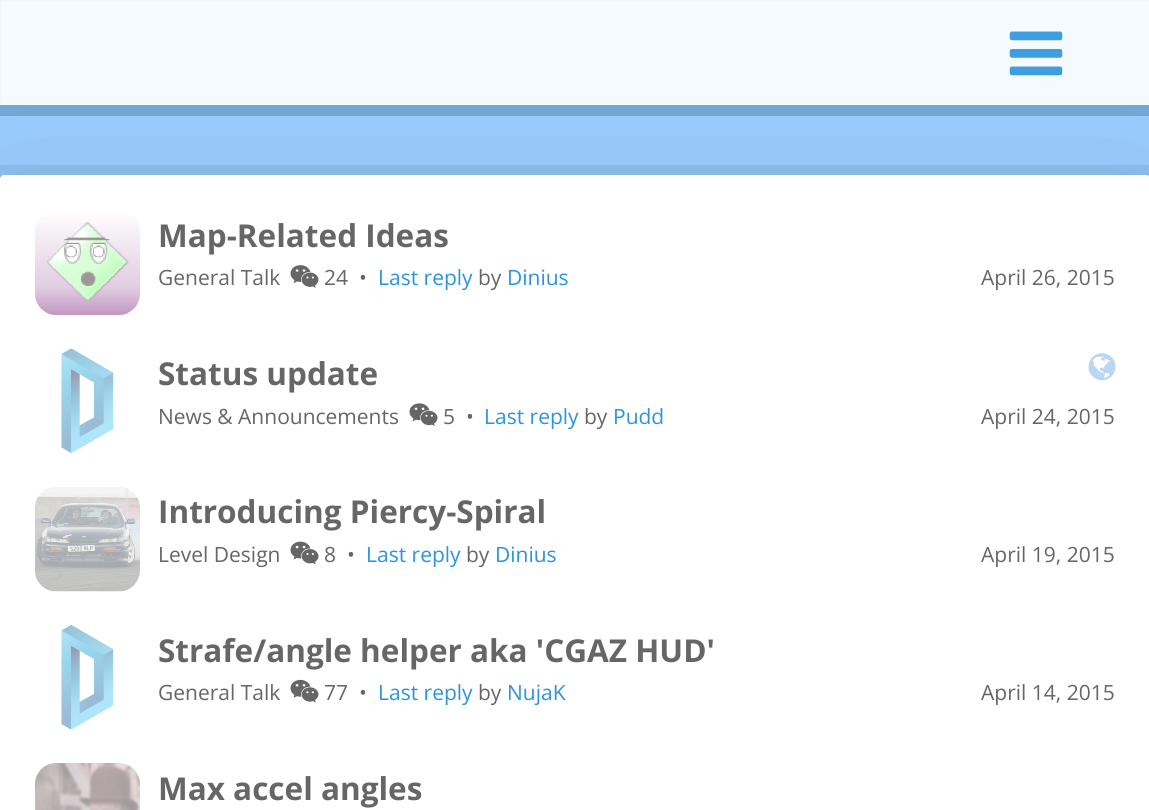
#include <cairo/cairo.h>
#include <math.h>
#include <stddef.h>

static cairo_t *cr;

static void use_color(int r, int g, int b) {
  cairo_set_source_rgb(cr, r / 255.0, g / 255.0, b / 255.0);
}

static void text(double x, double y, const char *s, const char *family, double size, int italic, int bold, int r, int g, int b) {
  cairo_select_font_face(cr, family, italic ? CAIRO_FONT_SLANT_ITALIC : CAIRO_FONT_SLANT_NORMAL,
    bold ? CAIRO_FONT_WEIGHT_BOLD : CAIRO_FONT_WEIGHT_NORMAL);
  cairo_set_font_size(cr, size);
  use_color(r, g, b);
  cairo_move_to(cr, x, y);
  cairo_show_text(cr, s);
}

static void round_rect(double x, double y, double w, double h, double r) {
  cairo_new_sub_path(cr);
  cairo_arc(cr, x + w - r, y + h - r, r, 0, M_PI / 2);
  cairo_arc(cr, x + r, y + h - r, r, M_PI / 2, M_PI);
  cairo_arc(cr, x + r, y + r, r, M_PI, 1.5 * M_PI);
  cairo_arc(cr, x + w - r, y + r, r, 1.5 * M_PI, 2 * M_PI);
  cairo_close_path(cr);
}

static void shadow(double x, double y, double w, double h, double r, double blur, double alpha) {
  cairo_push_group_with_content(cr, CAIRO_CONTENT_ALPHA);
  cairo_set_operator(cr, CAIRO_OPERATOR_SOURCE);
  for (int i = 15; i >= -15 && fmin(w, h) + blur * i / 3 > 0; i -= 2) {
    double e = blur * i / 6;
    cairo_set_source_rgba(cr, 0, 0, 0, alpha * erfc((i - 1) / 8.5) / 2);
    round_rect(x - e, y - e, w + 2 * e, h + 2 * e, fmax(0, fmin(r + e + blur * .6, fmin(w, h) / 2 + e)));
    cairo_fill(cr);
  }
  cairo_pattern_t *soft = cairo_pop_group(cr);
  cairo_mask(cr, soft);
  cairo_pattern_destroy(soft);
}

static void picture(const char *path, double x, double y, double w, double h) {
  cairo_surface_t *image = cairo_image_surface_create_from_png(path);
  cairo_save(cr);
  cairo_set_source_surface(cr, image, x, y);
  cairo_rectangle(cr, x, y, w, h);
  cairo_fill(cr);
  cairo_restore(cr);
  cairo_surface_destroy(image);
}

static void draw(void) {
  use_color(153, 204, 255);
  cairo_paint(cr);
  use_color(100, 100, 100);
  shadow(0, 210, 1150, 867, 4, 87.5, 0.2);
  cairo_rectangle(cr, -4.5, -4.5, 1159, 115);
  cairo_set_source_rgba(cr, 0.078, 0.275, 0.431, 0.27);
  cairo_set_line_width(cr, 11);
  cairo_stroke(cr);
  cairo_set_source_rgba(cr, 1, 1, 1, 0.9);
  cairo_rectangle(cr, 0, 0, 1149, 105);
  cairo_fill(cr);
  picture("img_01.png", 1009, 31, 54, 45);
  round_rect(-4.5, 170.5, 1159, 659, 8.5);
  cairo_set_source_rgba(cr, 0.078, 0.275, 0.431, 0.1);
  cairo_stroke(cr);
  use_color(255, 255, 255);
  round_rect(0, 175, 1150, 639, 4);
  cairo_fill(cr);
  picture("img_02.png", 35, 215, 105, 100);
  picture("img_03.png", 290, 265, 29, 23);
  picture("img_04.png", 61, 348, 53, 105);
  picture("img_05.png", 1088, 353, 28, 28);
  picture("img_06.png", 409, 403, 29, 23);
  picture("img_07.png", 35, 487, 105, 105);
  picture("img_08.png", 290, 541, 29, 24);
  picture("img_09.png", 61, 625, 53, 105);
  picture("img_10.png", 290, 679, 29, 24);
  picture("img_11.png", 35, 763, 105, 47);
  text(158, 247, "Map-Related Ideas", "Open Sans", 31.5, 0, 1, 102, 102, 102);
  text(158, 285, "General Talk", "Open Sans", 21, 0, 0, 102, 102, 102);
  text(324, 285, "24  •", "Open Sans", 21, 0, 0, 102, 102, 102);
  text(378, 285, "Last reply", "Open Sans", 21, 0, 0, 43, 148, 221);
  text(478, 285, "by", "Open Sans", 21, 0, 0, 102, 102, 102);
  text(507, 285, "Dinius", "Open Sans", 21, 0, 0, 43, 148, 221);
  text(981, 285, "April 26, 2015", "Open Sans", 21, 0, 0, 102, 102, 102);
  text(158, 385, "Status update", "Open Sans", 31.5, 0, 1, 102, 102, 102);
  text(158, 424, "News & Announcements", "Open Sans", 21, 0, 0, 102, 102, 102);
  text(443, 424, "5  •", "Open Sans", 21, 0, 0, 102, 102, 102);
  text(484, 424, "Last reply", "Open Sans", 21, 0, 0, 43, 148, 221);
  text(584, 424, "by", "Open Sans", 21, 0, 0, 102, 102, 102);
  text(613, 424, "Pudd", "Open Sans", 21, 0, 0, 43, 148, 221);
  text(981, 424, "April 24, 2015", "Open Sans", 21, 0, 0, 102, 102, 102);
  text(158, 523, "Introducing Piercy-Spiral", "Open Sans", 31.5, 0, 1, 102, 102, 102);
  text(158, 562, "Level Design", "Open Sans", 21, 0, 0, 102, 102, 102);
  text(324, 562, "8  •", "Open Sans", 21, 0, 0, 102, 102, 102);
  text(366, 562, "Last reply", "Open Sans", 21, 0, 0, 43, 148, 221);
  text(466, 562, "by", "Open Sans", 21, 0, 0, 102, 102, 102);
  text(495, 562, "Dinius", "Open Sans", 21, 0, 0, 43, 148, 221);
  text(981, 562, "April 19, 2015", "Open Sans", 21, 0, 0, 102, 102, 102);
  text(158, 662, "Strafe/angle helper aka 'CGAZ HUD'", "Open Sans", 31.5, 0, 1, 102, 102, 102);
  text(158, 700, "General Talk", "Open Sans", 21, 0, 0, 102, 102, 102);
  text(324, 700, "77  •", "Open Sans", 21, 0, 0, 102, 102, 102);
  text(378, 700, "Last reply", "Open Sans", 21, 0, 0, 43, 148, 221);
  text(478, 700, "by", "Open Sans", 21, 0, 0, 102, 102, 102);
  text(507, 700, "NujaK", "Open Sans", 21, 0, 0, 43, 148, 221);
  text(981, 700, "April 14, 2015", "Open Sans", 21, 0, 0, 102, 102, 102);
  text(158, 800, "Max accel angles", "Open Sans", 31.5, 0, 1, 102, 102, 102);
}

int main(void) {
  cairo_surface_t *surface = cairo_image_surface_create(CAIRO_FORMAT_RGB24, 1149, 810);
  cr = cairo_create(surface);
  cairo_font_options_t *options = cairo_font_options_create();
  cairo_font_options_set_hint_metrics(options, CAIRO_HINT_METRICS_OFF);
  cairo_font_options_set_hint_style(options, CAIRO_HINT_STYLE_NONE);
  cairo_set_font_options(cr, options);
  cairo_set_miter_limit(cr, 4);
  draw();
  cairo_surface_write_to_png(surface, "out.png");
  cairo_font_options_destroy(options);
  cairo_destroy(cr);
  cairo_surface_destroy(surface);
  return 0;
}
